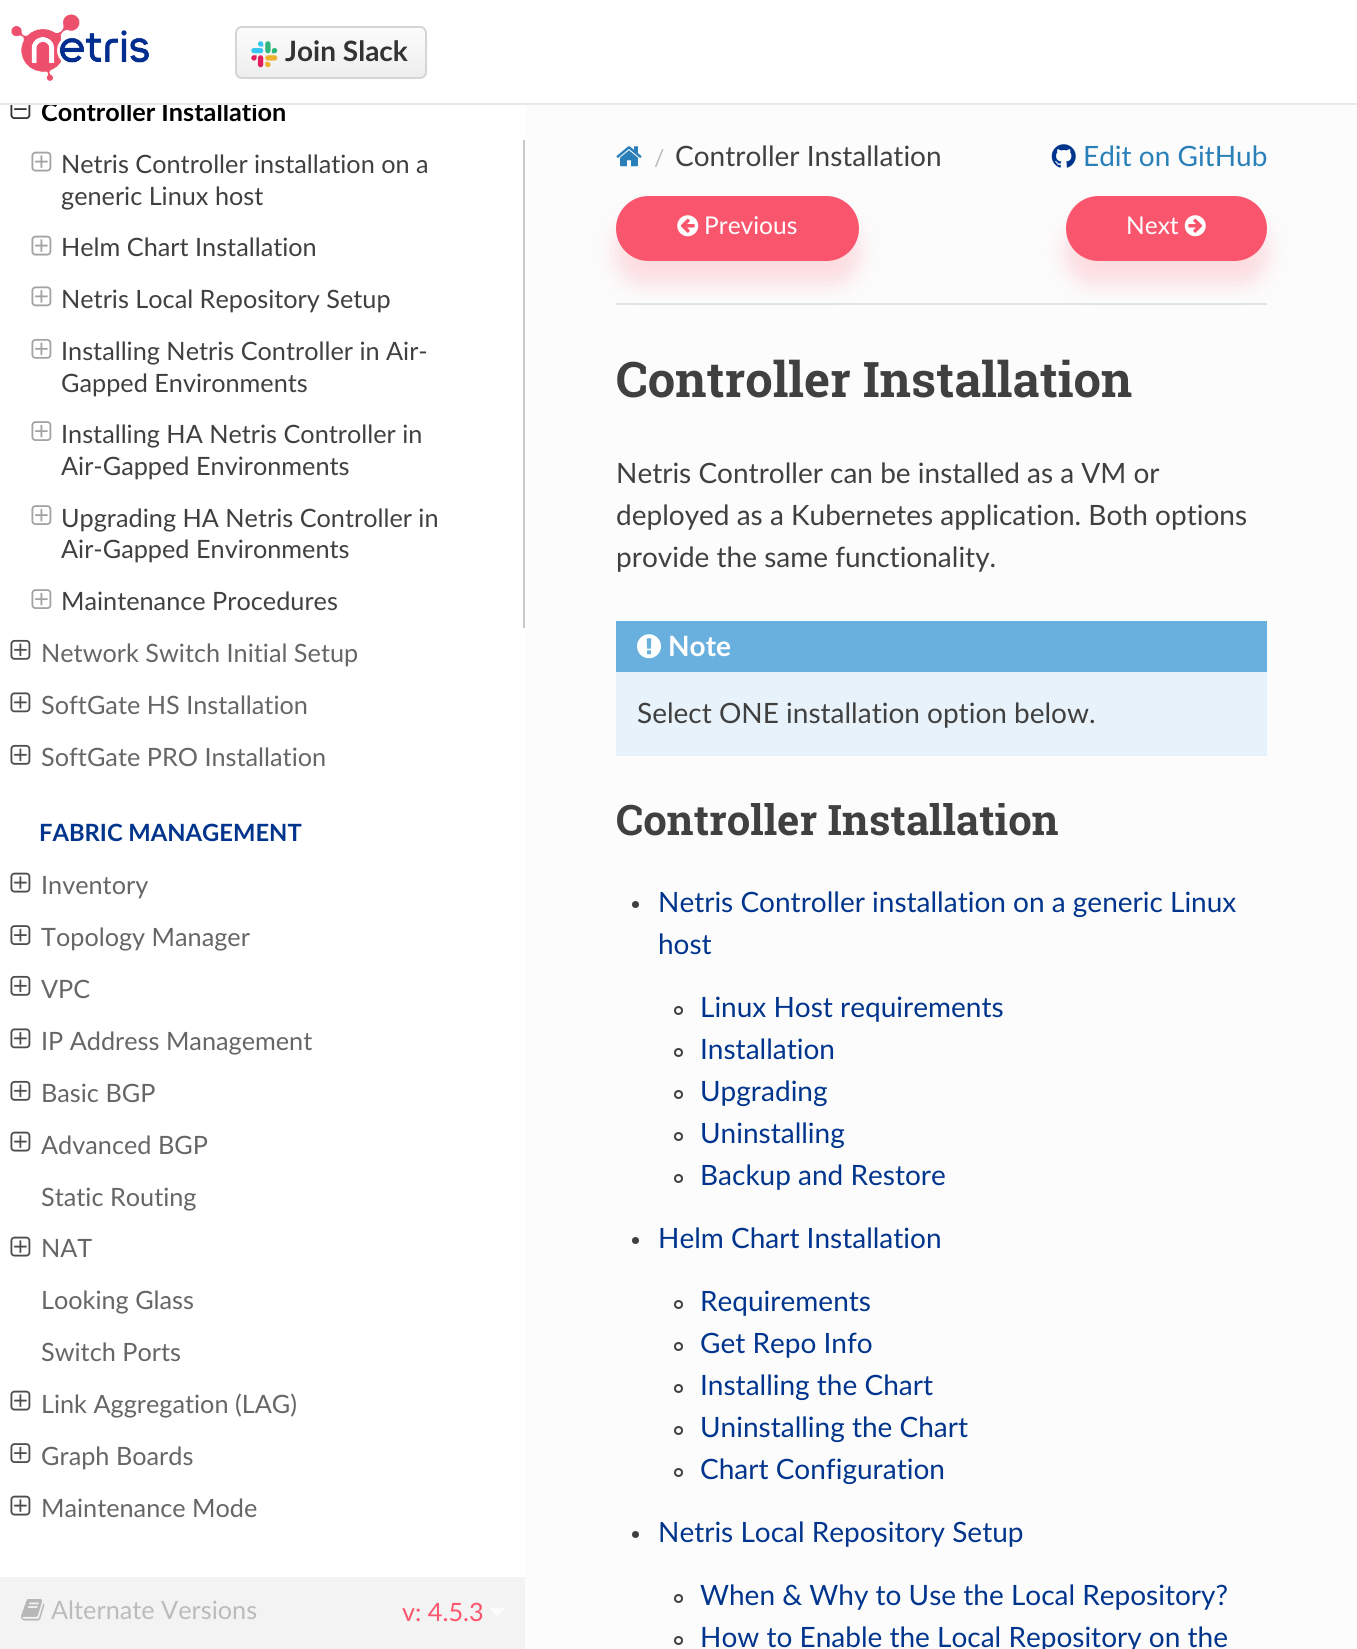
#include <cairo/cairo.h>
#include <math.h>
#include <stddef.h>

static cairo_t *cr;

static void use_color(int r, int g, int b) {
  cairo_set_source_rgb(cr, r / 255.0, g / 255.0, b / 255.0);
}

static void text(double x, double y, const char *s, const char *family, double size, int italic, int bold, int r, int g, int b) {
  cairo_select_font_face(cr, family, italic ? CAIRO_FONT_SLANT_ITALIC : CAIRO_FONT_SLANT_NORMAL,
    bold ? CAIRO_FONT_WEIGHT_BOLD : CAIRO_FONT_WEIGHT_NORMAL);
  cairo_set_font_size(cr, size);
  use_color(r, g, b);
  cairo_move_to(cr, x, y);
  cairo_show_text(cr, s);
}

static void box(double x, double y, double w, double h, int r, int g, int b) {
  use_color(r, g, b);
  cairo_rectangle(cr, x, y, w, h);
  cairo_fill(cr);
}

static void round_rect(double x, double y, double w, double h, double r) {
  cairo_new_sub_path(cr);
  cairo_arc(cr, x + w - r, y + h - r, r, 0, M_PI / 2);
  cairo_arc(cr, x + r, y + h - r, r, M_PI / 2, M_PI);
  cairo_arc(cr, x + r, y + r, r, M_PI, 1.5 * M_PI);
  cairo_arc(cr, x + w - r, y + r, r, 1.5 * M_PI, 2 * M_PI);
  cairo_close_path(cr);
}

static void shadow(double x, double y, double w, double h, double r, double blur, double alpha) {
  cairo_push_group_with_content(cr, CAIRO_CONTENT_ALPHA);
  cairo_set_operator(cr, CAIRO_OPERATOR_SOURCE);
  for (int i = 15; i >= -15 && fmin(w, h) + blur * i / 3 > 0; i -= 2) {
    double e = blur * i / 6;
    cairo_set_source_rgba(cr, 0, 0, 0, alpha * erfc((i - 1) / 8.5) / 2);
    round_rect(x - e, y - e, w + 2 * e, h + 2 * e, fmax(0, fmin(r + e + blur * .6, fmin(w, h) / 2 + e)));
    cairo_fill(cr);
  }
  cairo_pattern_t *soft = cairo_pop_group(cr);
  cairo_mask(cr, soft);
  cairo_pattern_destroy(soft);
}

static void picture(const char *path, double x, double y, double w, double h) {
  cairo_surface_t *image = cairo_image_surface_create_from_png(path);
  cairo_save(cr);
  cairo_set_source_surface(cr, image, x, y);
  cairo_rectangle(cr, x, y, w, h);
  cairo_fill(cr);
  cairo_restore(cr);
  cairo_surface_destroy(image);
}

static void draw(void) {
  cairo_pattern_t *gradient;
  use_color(252, 252, 252);
  cairo_paint(cr);
  box(0, 105, 525, 1472, 255, 255, 255);
  picture("img_03.png", 10, 105, 21, 14);
  box(523, 140, 2, 488, 201, 201, 201);
  picture("img_04.png", 31, 151, 21, 21);
  picture("img_04.png", 31, 235, 21, 21);
  picture("img_05.png", 31, 286, 21, 21);
  picture("img_06.png", 31, 338, 21, 21);
  picture("img_07.png", 31, 421, 21, 20);
  picture("img_07.png", 31, 505, 21, 20);
  picture("img_07.png", 31, 589, 21, 20);
  picture("img_08.png", 10, 639, 21, 21);
  picture("img_09.png", 10, 692, 21, 21);
  picture("img_08.png", 10, 744, 21, 21);
  picture("img_10.png", 10, 872, 21, 21);
  picture("img_11.png", 10, 925, 21, 20);
  picture("img_08.png", 10, 975, 21, 21);
  picture("img_09.png", 10, 1028, 21, 21);
  picture("img_08.png", 10, 1080, 21, 21);
  picture("img_10.png", 10, 1131, 21, 21);
  picture("img_10.png", 10, 1236, 21, 21);
  picture("img_10.png", 10, 1390, 21, 21);
  picture("img_11.png", 10, 1443, 21, 20);
  picture("img_10.png", 10, 1495, 21, 21);
  picture("img_12.png", 616, 146, 26, 21);
  picture("img_13.png", 1051, 144, 25, 24);
  use_color(249, 85, 109);
  shadow(616, 219, 243, 65, 32.5, 11.5, 0.2);
  use_color(249, 85, 109);
  round_rect(616, 196, 243, 65, 32.5);
  cairo_fill(cr);
  picture("img_14.png", 677, 215, 22, 22);
  use_color(249, 85, 109);
  shadow(1066, 219, 201, 65, 32.5, 11.5, 0.2);
  use_color(249, 85, 109);
  round_rect(1066, 196, 201, 65, 32.5);
  cairo_fill(cr);
  picture("img_15.png", 1184, 215, 22, 22);
  box(616, 303, 651, 2, 225, 228, 229);
  box(616, 672, 651, 84, 231, 242, 250);
  box(616, 621, 651, 51, 106, 176, 222);
  picture("img_16.png", 637, 634, 24, 25);
  use_color(64, 64, 64);
  cairo_arc(cr, 635.5, 904.5, 3.5, 0, 2 * M_PI);
  cairo_fill(cr);
  cairo_arc(cr, 678.5, 1010.5, 3.5, 0, 2 * M_PI);
  cairo_stroke(cr);
  cairo_arc(cr, 678.5, 1052.5, 3.5, 0, 2 * M_PI);
  cairo_stroke(cr);
  cairo_arc(cr, 678.5, 1094.5, 3.5, 0, 2 * M_PI);
  cairo_stroke(cr);
  cairo_arc(cr, 678.5, 1136.5, 3.5, 0, 2 * M_PI);
  cairo_stroke(cr);
  cairo_arc(cr, 678.5, 1178.5, 3.5, 0, 2 * M_PI);
  cairo_stroke(cr);
  cairo_arc(cr, 635.5, 1240.5, 3.5, 0, 2 * M_PI);
  cairo_fill(cr);
  cairo_arc(cr, 678.5, 1304.5, 3.5, 0, 2 * M_PI);
  cairo_stroke(cr);
  cairo_arc(cr, 678.5, 1346.5, 3.5, 0, 2 * M_PI);
  cairo_stroke(cr);
  cairo_arc(cr, 678.5, 1388.5, 3.5, 0, 2 * M_PI);
  cairo_stroke(cr);
  cairo_arc(cr, 678.5, 1430.5, 3.5, 0, 2 * M_PI);
  cairo_stroke(cr);
  cairo_arc(cr, 678.5, 1472.5, 3.5, 0, 2 * M_PI);
  cairo_stroke(cr);
  cairo_arc(cr, 635.5, 1534.5, 3.5, 0, 2 * M_PI);
  cairo_fill(cr);
  cairo_arc(cr, 678.5, 1598.5, 3.5, 0, 2 * M_PI);
  cairo_stroke(cr);
  cairo_arc(cr, 678.5, 1640.5, 3.5, 0, 2 * M_PI);
  cairo_stroke(cr);
  box(0, 1577, 525, 72, 243, 243, 243);
  picture("img_17.png", 21, 1599, 24, 22);
  picture("img_18.png", 490, 1608, 14, 8);
  text(41, 121, "Controller Installation", "Lato", 25.25, 0, 1, 0, 0, 0);
  box(0, 0, 1357, 103, 255, 255, 255);
  gradient = cairo_pattern_create_linear(331, 28, 331, 77);
  cairo_pattern_add_color_stop_rgba(gradient, 0, 0.988, 0.988, 0.988, 1);
  cairo_pattern_add_color_stop_rgba(gradient, 1, 0.933, 0.933, 0.933, 1);
  cairo_set_source(cr, gradient);
  cairo_pattern_destroy(gradient);
  cairo_rectangle(cr, 236, 28, 189, 49);
  cairo_fill(cr);
  round_rect(236, 27, 190, 51, 6);
  use_color(213, 213, 213);
  cairo_stroke(cr);
  text(285, 61, "Join Slack", "Lato", 28, 0, 1, 51, 51, 51);
  picture("img_02.png", 251, 41, 27, 27);
  picture("img_01.png", 11, 14, 138, 67);
  box(0, 103, 1357, 2, 233, 233, 233);
  text(61, 173, "Netris Controller installation on a", "Lato", 25.25, 0, 0, 64, 64, 64);
  text(61, 205, "generic Linux host", "Lato", 25.25, 0, 0, 64, 64, 64);
  text(61, 256, "Helm Chart Installation", "Lato", 25.25, 0, 0, 64, 64, 64);
  text(61, 308, "Netris Local Repository Setup", "Lato", 25.25, 0, 0, 64, 64, 64);
  text(61, 360, "Installing Netris Controller in Air-", "Lato", 25.25, 0, 0, 64, 64, 64);
  text(61, 392, "Gapped Environments", "Lato", 25.25, 0, 0, 64, 64, 64);
  text(61, 443, "Installing HA Netris Controller in", "Lato", 25.25, 0, 0, 64, 64, 64);
  text(61, 475, "Air-Gapped Environments", "Lato", 25.25, 0, 0, 64, 64, 64);
  text(61, 527, "Upgrading HA Netris Controller in", "Lato", 25.25, 0, 0, 64, 64, 64);
  text(61, 558, "Air-Gapped Environments", "Lato", 25.25, 0, 0, 64, 64, 64);
  text(61, 610, "Maintenance Procedures", "Lato", 25.25, 0, 0, 64, 64, 64);
  text(41, 662, "Network Switch Initial Setup", "Lato", 25.25, 0, 0, 102, 102, 102);
  text(41, 714, "SoftGate HS Installation", "Lato", 25.25, 0, 0, 102, 102, 102);
  text(41, 766, "SoftGate PRO Installation", "Lato", 25.25, 0, 0, 102, 102, 102);
  text(39, 841, "FABRIC MANAGEMENT", "Lato", 23.75, 0, 1, 1, 53, 141);
  text(41, 894, "Inventory", "Lato", 25.25, 0, 0, 102, 102, 102);
  text(41, 946, "Topology Manager", "Lato", 25.25, 0, 0, 102, 102, 102);
  text(41, 998, "VPC", "Lato", 25.25, 0, 0, 102, 102, 102);
  text(41, 1050, "IP Address Management", "Lato", 25.25, 0, 0, 102, 102, 102);
  text(41, 1102, "Basic BGP", "Lato", 25.25, 0, 0, 102, 102, 102);
  text(41, 1154, "Advanced BGP", "Lato", 25.25, 0, 0, 102, 102, 102);
  text(41, 1206, "Static Routing", "Lato", 25.25, 0, 0, 102, 102, 102);
  text(41, 1257, "NAT", "Lato", 25.25, 0, 0, 102, 102, 102);
  text(41, 1309, "Looking Glass", "Lato", 25.25, 0, 0, 102, 102, 102);
  text(41, 1361, "Switch Ports", "Lato", 25.25, 0, 0, 102, 102, 102);
  text(41, 1413, "Link Aggregation (LAG)", "Lato", 25.25, 0, 0, 102, 102, 102);
  text(41, 1465, "Graph Boards", "Lato", 25.25, 0, 0, 102, 102, 102);
  text(41, 1517, "Maintenance Mode", "Lato", 25.25, 0, 0, 102, 102, 102);
  text(654, 166, "/", "Lato", 23, 0, 0, 187, 187, 187);
  text(675, 166, "Controller Installation", "Lato", 28, 0, 0, 64, 64, 64);
  text(1083, 166, "Edit on GitHub", "Lato", 28, 0, 0, 41, 128, 185);
  text(704, 234, "Previous", "Lato", 24.5, 0, 0, 255, 255, 255);
  text(1126, 234, "Next", "Lato", 24.5, 0, 0, 255, 255, 255);
  text(616, 397, "Controller Installation", "Roboto Slab", 49, 0, 1, 64, 64, 64);
  text(616, 483, "Netris Controller can be installed as a VM or", "Lato", 28, 0, 0, 64, 64, 64);
  text(616, 525, "deployed as a Kubernetes application. Both options", "Lato", 28, 0, 0, 64, 64, 64);
  text(616, 567, "provide the same functionality.", "Lato", 28, 0, 0, 64, 64, 64);
  text(668, 656, "Note", "Lato", 28, 0, 1, 255, 255, 255);
  text(637, 723, "Select ONE installation option below.", "Lato", 28, 0, 0, 64, 64, 64);
  text(616, 835, "Controller Installation", "Roboto Slab", 42, 0, 1, 64, 64, 64);
  text(658, 912, "Netris Controller installation on a generic Linux", "Lato", 28, 0, 0, 1, 53, 141);
  text(658, 954, "host", "Lato", 28, 0, 0, 1, 53, 141);
  text(700, 1017, "Linux Host requirements", "Lato", 28, 0, 0, 1, 53, 141);
  text(700, 1059, "Installation", "Lato", 28, 0, 0, 1, 53, 141);
  text(700, 1101, "Upgrading", "Lato", 28, 0, 0, 1, 53, 141);
  text(700, 1143, "Uninstalling", "Lato", 28, 0, 0, 1, 53, 141);
  text(700, 1185, "Backup and Restore", "Lato", 28, 0, 0, 1, 53, 141);
  text(658, 1248, "Helm Chart Installation", "Lato", 28, 0, 0, 1, 53, 141);
  text(700, 1311, "Requirements", "Lato", 28, 0, 0, 1, 53, 141);
  text(700, 1353, "Get Repo Info", "Lato", 28, 0, 0, 1, 53, 141);
  text(700, 1395, "Installing the Chart", "Lato", 28, 0, 0, 1, 53, 141);
  text(700, 1437, "Uninstalling the Chart", "Lato", 28, 0, 0, 1, 53, 141);
  text(700, 1479, "Chart Configuration", "Lato", 28, 0, 0, 1, 53, 141);
  text(658, 1542, "Netris Local Repository Setup", "Lato", 28, 0, 0, 1, 53, 141);
  text(700, 1605, "When & Why to Use the Local Repository?", "Lato", 28, 0, 0, 1, 53, 141);
  text(700, 1647, "How to Enable the Local Repository on the", "Lato", 28, 0, 0, 1, 53, 141);
  text(51, 1619, "Alternate Versions", "Lato", 25.25, 0, 0, 187, 187, 187);
  text(402, 1621, "v: 4.5.3", "Lato", 25.25, 0, 0, 249, 85, 109);
}

int main(void) {
  cairo_surface_t *surface = cairo_image_surface_create(CAIRO_FORMAT_RGB24, 1357, 1649);
  cr = cairo_create(surface);
  cairo_font_options_t *options = cairo_font_options_create();
  cairo_font_options_set_hint_metrics(options, CAIRO_HINT_METRICS_OFF);
  cairo_font_options_set_hint_style(options, CAIRO_HINT_STYLE_NONE);
  cairo_set_font_options(cr, options);
  cairo_set_miter_limit(cr, 4);
  draw();
  cairo_surface_write_to_png(surface, "out.png");
  cairo_font_options_destroy(options);
  cairo_destroy(cr);
  cairo_surface_destroy(surface);
  return 0;
}
